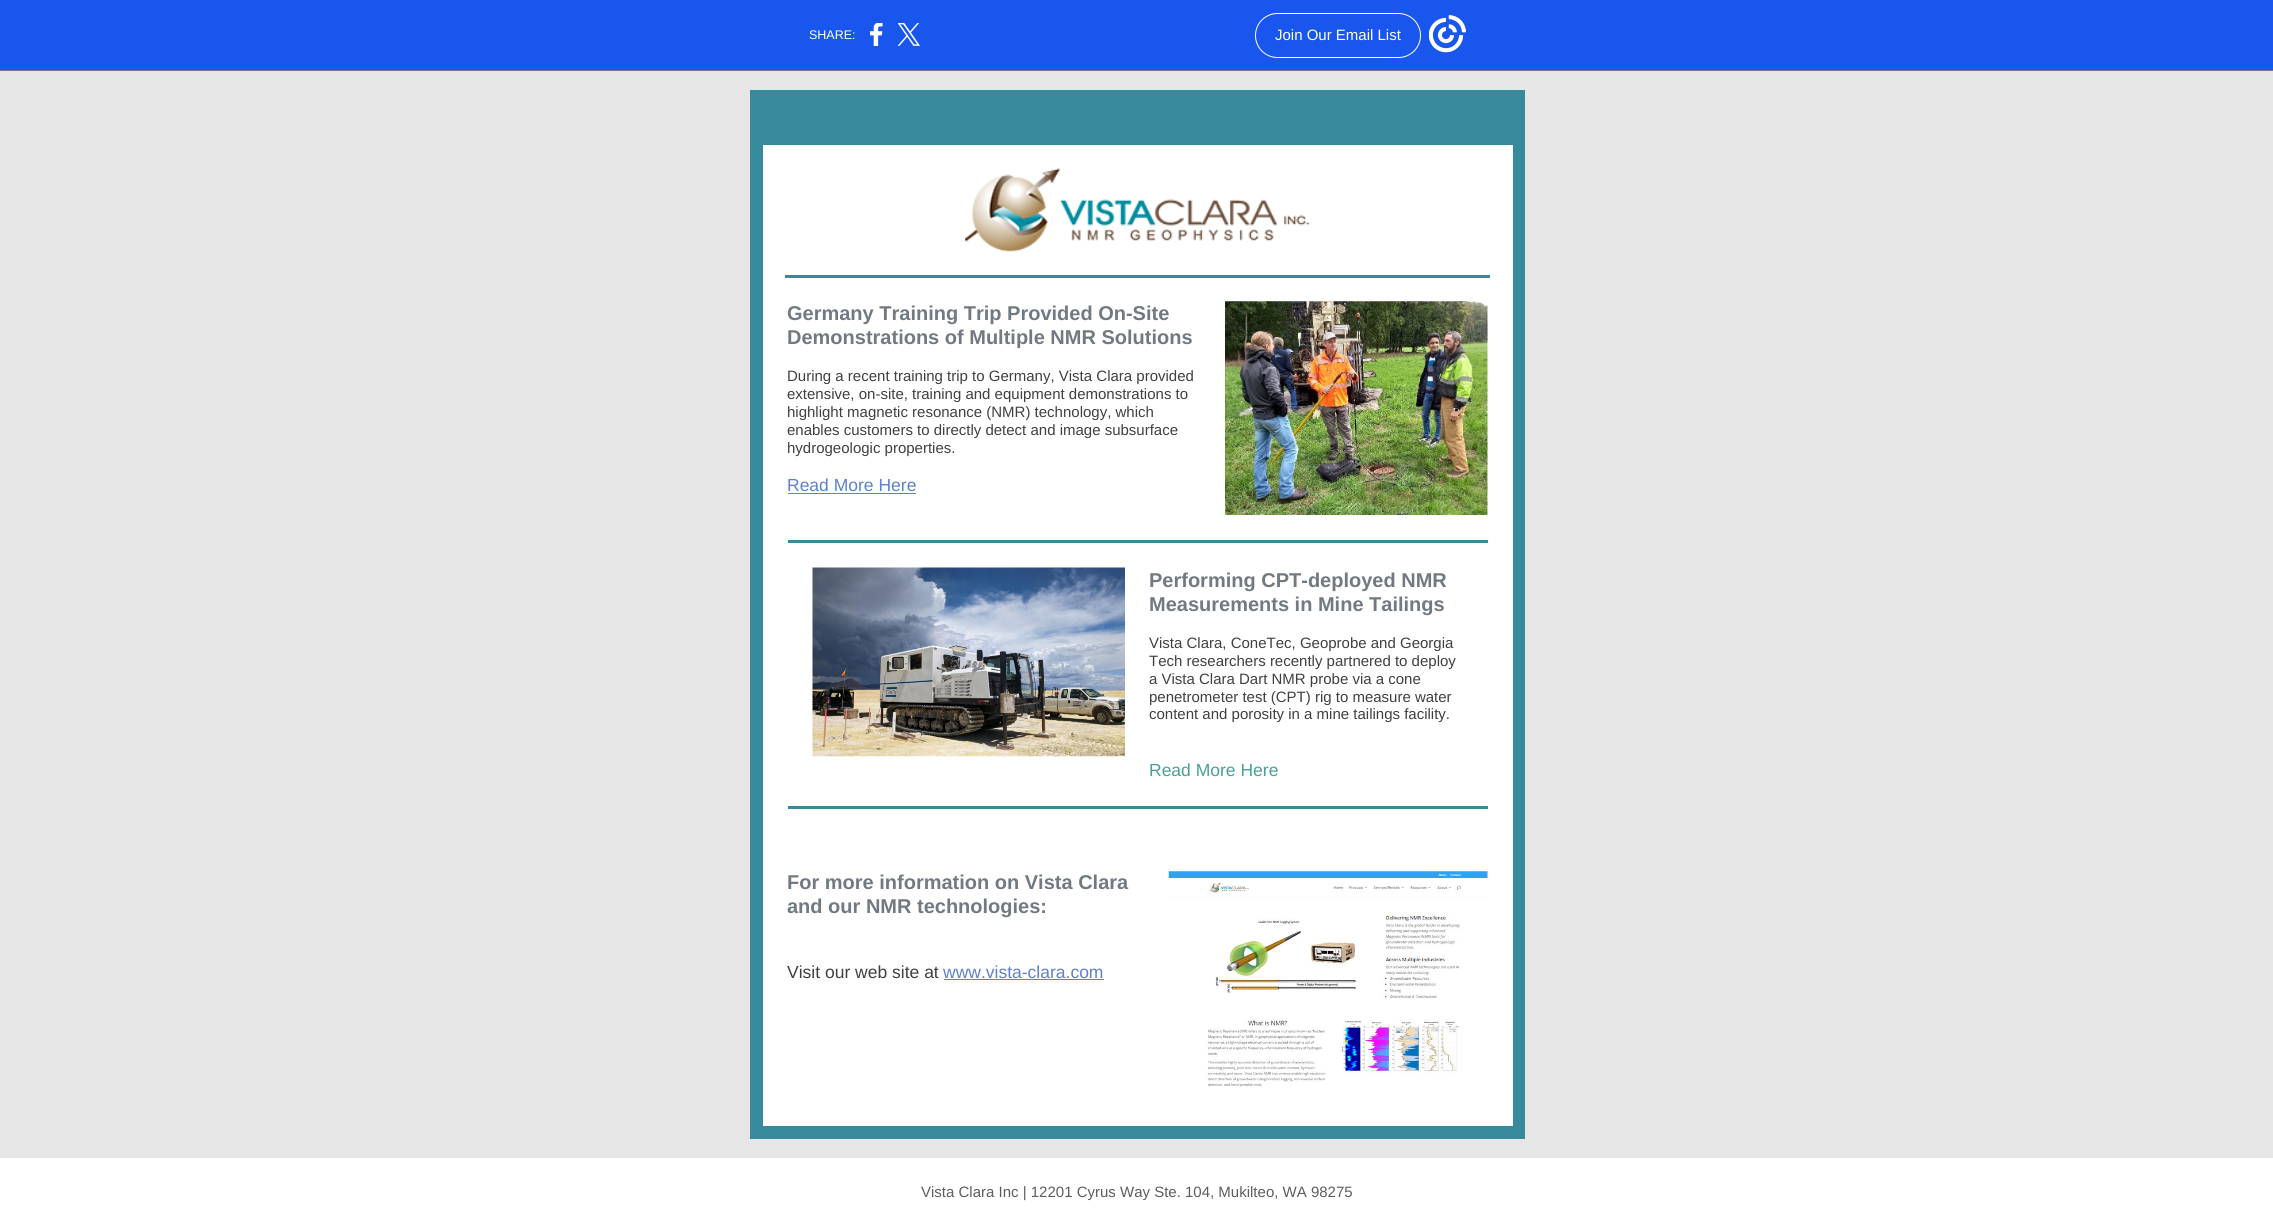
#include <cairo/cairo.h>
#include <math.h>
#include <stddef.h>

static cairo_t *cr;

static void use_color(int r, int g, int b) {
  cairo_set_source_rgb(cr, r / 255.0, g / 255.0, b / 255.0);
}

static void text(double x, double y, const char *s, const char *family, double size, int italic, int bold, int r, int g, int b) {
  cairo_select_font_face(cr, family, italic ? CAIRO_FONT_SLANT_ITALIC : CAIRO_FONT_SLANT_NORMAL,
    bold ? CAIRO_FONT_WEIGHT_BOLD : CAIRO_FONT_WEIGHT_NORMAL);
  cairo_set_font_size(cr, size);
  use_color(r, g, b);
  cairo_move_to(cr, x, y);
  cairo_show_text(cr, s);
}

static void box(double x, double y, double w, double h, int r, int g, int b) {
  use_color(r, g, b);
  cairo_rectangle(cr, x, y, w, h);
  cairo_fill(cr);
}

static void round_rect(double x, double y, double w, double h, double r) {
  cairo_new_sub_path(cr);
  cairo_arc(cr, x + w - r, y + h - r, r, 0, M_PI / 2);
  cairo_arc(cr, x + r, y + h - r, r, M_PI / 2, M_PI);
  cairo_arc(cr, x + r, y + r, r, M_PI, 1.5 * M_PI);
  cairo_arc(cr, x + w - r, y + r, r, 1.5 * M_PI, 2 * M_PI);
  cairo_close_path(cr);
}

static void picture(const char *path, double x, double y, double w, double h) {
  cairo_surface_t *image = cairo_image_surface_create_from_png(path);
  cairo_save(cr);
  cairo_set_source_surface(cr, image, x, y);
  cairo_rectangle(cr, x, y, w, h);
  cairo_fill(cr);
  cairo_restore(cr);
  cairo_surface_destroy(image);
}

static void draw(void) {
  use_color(24, 86, 237);
  cairo_paint(cr);
  box(0, 70, 2273, 1, 122, 122, 122);
  picture("img_01.png", 870, 23, 13, 23);
  picture("img_02.png", 898, 23, 22, 23);
  round_rect(1255.5, 13.5, 165, 44, 22);
  use_color(255, 255, 255);
  cairo_set_line_width(cr, 1);
  cairo_stroke(cr);
  picture("img_03.png", 1429, 15, 37, 38);
  box(0, 71, 2273, 1087, 230, 230, 230);
  box(750, 90, 775, 1049, 54, 138, 156);
  box(763, 145, 750, 981, 255, 255, 255);
  picture("img_04.png", 965, 168, 344, 84);
  box(785, 275, 705, 3, 54, 138, 156);
  box(788, 493, 128, 1, 94, 129, 202);
  picture("img_05.png", 1225, 301, 263, 214);
  box(788, 540, 700, 3, 54, 138, 156);
  picture("img_06.png", 812, 567, 313, 190);
  box(788, 806, 700, 3, 54, 138, 156);
  box(944, 979, 160, 1, 94, 129, 202);
  picture("img_07.png", 1168, 871, 320, 216);
  box(0, 1158, 2273, 58, 255, 255, 255);
  text(809, 39, "SHARE:", "Liberation Sans", 12.5, 0, 0, 255, 255, 255);
  text(1275, 40, "Join Our Email List", "Liberation Sans", 15, 0, 0, 255, 255, 255);
  text(787, 320, "Germany Training Trip Provided On-Site", "Liberation Sans", 20, 0, 1, 113, 122, 128);
  text(787, 344, "Demonstrations of Multiple NMR Solutions", "Liberation Sans", 20, 0, 1, 113, 122, 128);
  text(787, 381, "During a recent training trip to Germany, Vista Clara provided", "Liberation Sans", 15, 0, 0, 64, 63, 66);
  text(787, 399, "extensive, on-site, training and equipment demonstrations to", "Liberation Sans", 15, 0, 0, 64, 63, 66);
  text(787, 417, "highlight magnetic resonance (NMR) technology, which", "Liberation Sans", 15, 0, 0, 64, 63, 66);
  text(787, 435, "enables customers to directly detect and image subsurface", "Liberation Sans", 15, 0, 0, 64, 63, 66);
  text(787, 453, "hydrogeologic properties.", "Liberation Sans", 15, 0, 0, 64, 63, 66);
  text(787, 491, "Read More Here", "Liberation Sans", 17.5, 0, 0, 94, 129, 202);
  text(1149, 587, "Performing CPT-deployed NMR", "Liberation Sans", 20, 0, 1, 113, 122, 128);
  text(1149, 611, "Measurements in Mine Tailings", "Liberation Sans", 20, 0, 1, 113, 122, 128);
  text(1149, 648, "Vista Clara, ConeTec, Geoprobe and Georgia", "Liberation Sans", 15, 0, 0, 64, 63, 66);
  text(1149, 666, "Tech researchers recently partnered to deploy", "Liberation Sans", 15, 0, 0, 64, 63, 66);
  text(1149, 684, "a Vista Clara Dart NMR probe via a cone", "Liberation Sans", 15, 0, 0, 64, 63, 66);
  text(1149, 702, "penetrometer test (CPT) rig to measure water", "Liberation Sans", 15, 0, 0, 64, 63, 66);
  text(1149, 719, "content and porosity in a mine tailings facility.", "Liberation Sans", 15, 0, 0, 64, 63, 66);
  text(1149, 776, "Read More Here", "Liberation Sans", 17.5, 0, 0, 72, 161, 153);
  text(787, 889, "For more information on Vista Clara", "Liberation Sans", 20, 0, 1, 113, 122, 128);
  text(787, 913, "and our NMR technologies:", "Liberation Sans", 20, 0, 1, 113, 122, 128);
  text(787, 978, "Visit our web site at", "Liberation Sans", 17.5, 0, 0, 64, 63, 66);
  text(943, 978, "www.vista-clara.com", "Liberation Sans", 17.5, 0, 0, 94, 129, 202);
  text(921, 1197, "Vista Clara Inc | 12201 Cyrus Way Ste. 104, Mukilteo, WA 98275", "Liberation Sans", 15, 0, 0, 93, 93, 93);
}

int main(void) {
  cairo_surface_t *surface = cairo_image_surface_create(CAIRO_FORMAT_RGB24, 2273, 1216);
  cr = cairo_create(surface);
  cairo_font_options_t *options = cairo_font_options_create();
  cairo_font_options_set_hint_metrics(options, CAIRO_HINT_METRICS_OFF);
  cairo_font_options_set_hint_style(options, CAIRO_HINT_STYLE_NONE);
  cairo_set_font_options(cr, options);
  cairo_set_miter_limit(cr, 4);
  draw();
  cairo_surface_write_to_png(surface, "out.png");
  cairo_font_options_destroy(options);
  cairo_destroy(cr);
  cairo_surface_destroy(surface);
  return 0;
}
